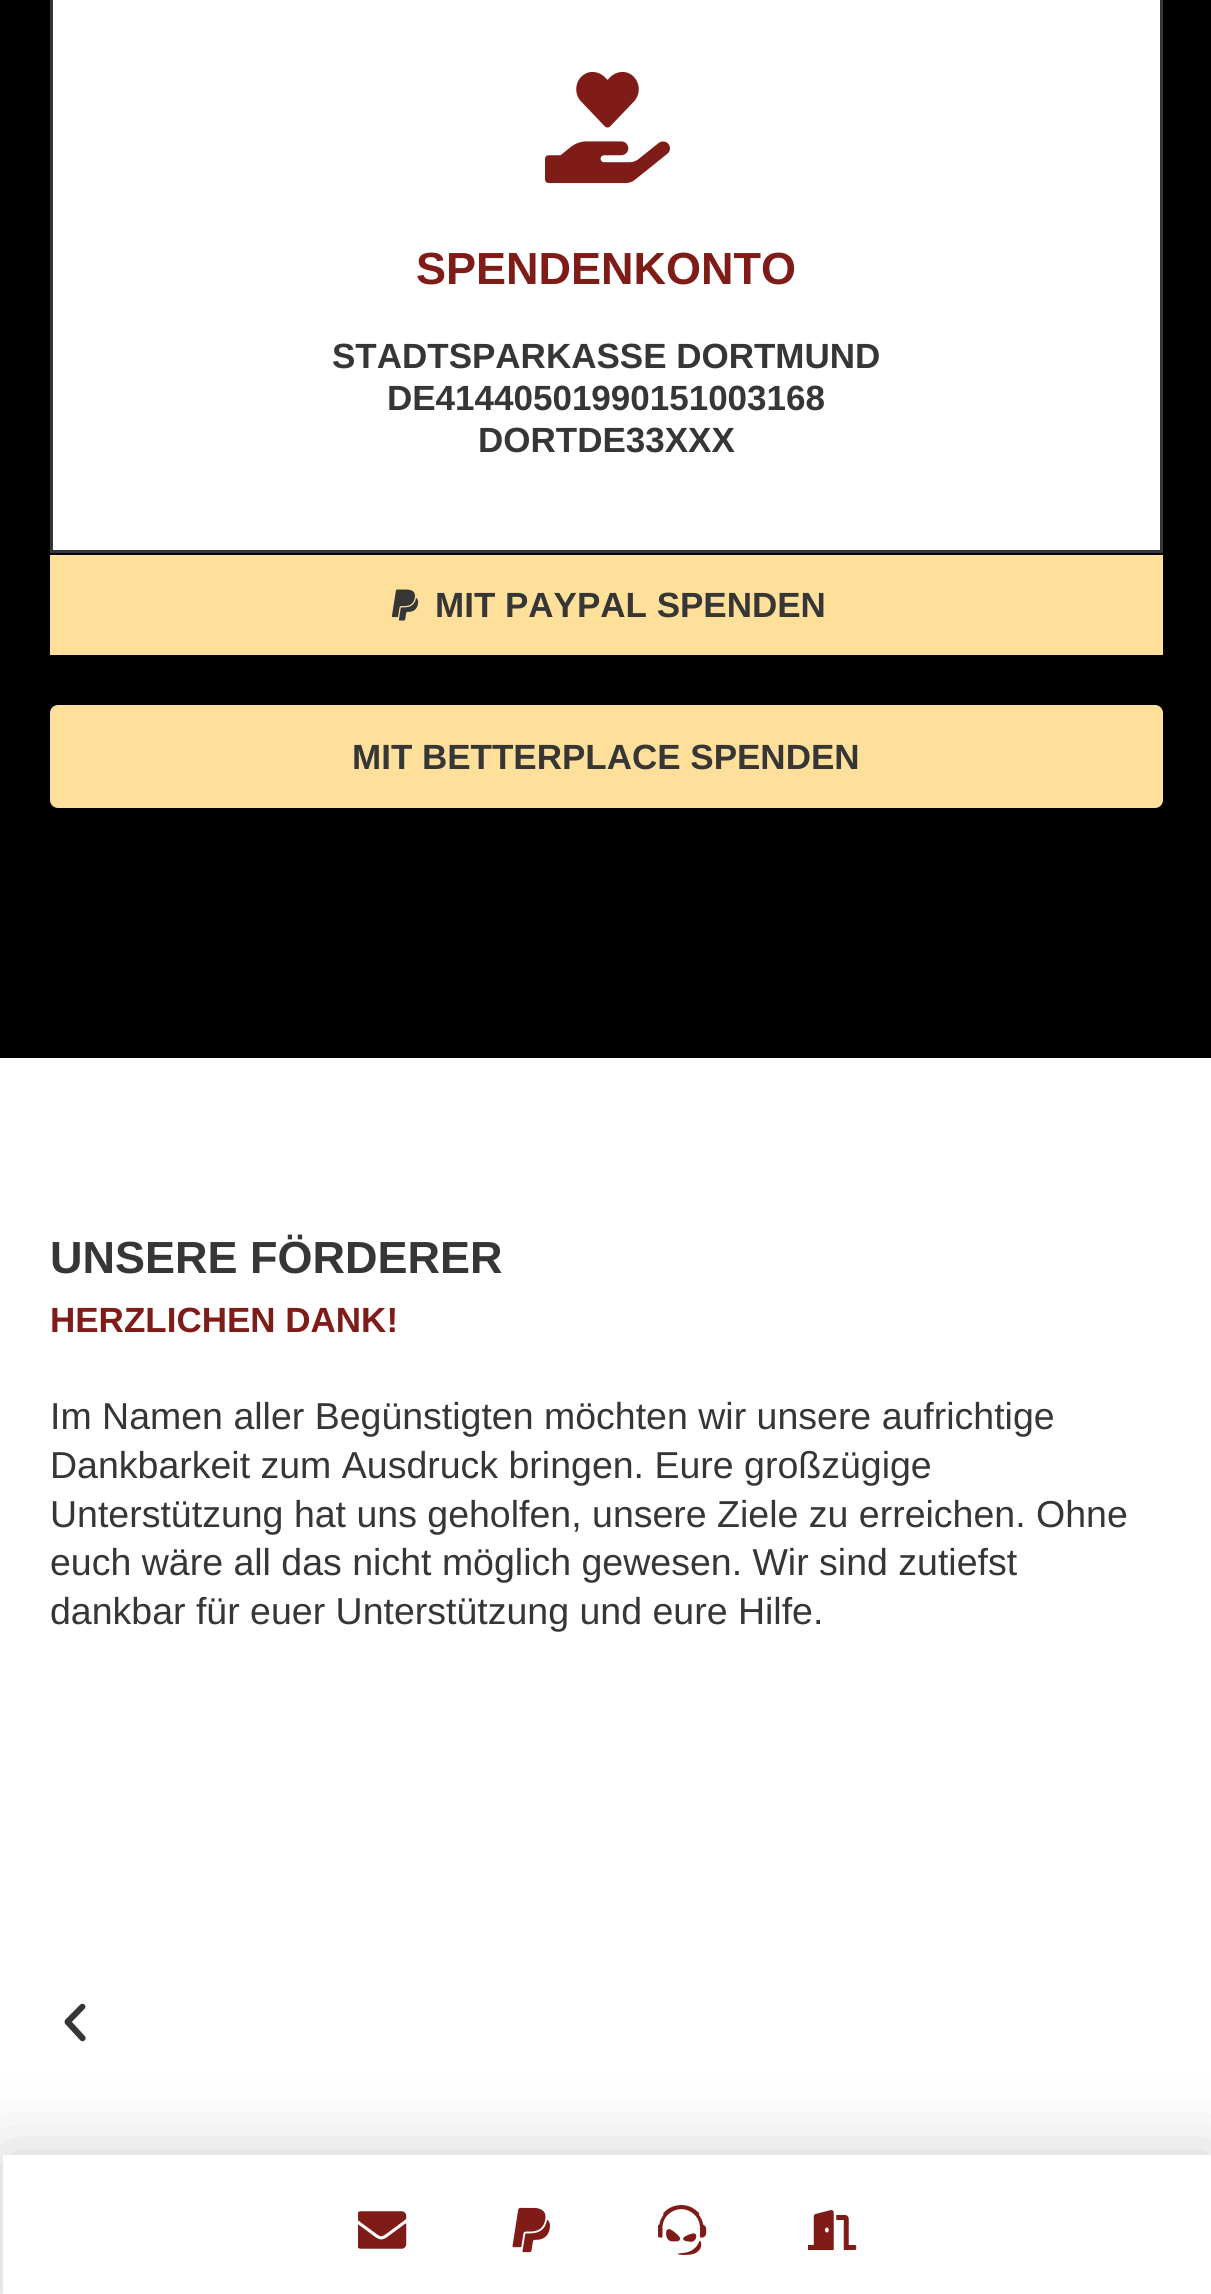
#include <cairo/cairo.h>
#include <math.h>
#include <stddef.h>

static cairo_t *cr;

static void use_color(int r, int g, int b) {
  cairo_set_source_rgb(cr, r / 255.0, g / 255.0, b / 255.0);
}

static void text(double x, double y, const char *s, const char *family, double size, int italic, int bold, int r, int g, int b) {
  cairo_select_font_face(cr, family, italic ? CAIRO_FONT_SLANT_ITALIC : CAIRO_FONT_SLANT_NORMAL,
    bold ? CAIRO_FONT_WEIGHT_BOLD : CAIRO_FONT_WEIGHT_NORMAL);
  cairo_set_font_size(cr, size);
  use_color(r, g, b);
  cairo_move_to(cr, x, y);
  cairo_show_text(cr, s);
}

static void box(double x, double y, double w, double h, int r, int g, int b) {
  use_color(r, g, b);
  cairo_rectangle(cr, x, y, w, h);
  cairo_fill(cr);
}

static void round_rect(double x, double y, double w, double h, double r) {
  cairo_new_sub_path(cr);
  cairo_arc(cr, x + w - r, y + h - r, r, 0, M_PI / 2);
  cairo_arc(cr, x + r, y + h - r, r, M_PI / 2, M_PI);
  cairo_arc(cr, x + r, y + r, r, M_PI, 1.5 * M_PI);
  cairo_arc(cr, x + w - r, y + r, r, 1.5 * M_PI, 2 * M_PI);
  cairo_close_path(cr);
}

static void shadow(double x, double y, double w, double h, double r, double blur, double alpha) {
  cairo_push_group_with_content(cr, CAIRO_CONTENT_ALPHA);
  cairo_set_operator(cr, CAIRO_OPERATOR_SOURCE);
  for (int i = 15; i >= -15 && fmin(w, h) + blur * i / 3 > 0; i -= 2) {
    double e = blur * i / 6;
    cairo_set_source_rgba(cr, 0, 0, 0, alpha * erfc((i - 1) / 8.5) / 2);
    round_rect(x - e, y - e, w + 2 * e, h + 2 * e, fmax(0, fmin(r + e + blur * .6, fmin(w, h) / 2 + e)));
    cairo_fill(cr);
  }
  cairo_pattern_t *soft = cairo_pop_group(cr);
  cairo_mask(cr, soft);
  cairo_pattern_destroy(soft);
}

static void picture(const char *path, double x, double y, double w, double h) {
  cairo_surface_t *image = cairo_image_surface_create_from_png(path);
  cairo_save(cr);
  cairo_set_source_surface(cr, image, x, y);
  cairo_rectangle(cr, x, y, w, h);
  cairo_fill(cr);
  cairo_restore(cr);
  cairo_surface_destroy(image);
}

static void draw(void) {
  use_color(255, 255, 255);
  cairo_paint(cr);
  box(0, 0, 1211, 1058, 0, 0, 0);
  cairo_rectangle(cr, 51.5, -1.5, 1110, 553);
  use_color(54, 54, 54);
  cairo_set_line_width(cr, 3);
  cairo_stroke(cr);
  box(53, 0, 1107, 550, 255, 255, 255);
  picture("img_01.png", 545, 72, 125, 112);
  box(50, 555, 1113, 100, 254, 224, 154);
  picture("img_02.png", 391, 589, 28, 32);
  round_rect(50, 705, 1113, 103, 8);
  cairo_fill(cr);
  picture("img_03.png", 64, 2003, 22, 39);
  cairo_save(cr);
  cairo_set_fill_rule(cr, CAIRO_FILL_RULE_EVEN_ODD);
  cairo_new_path(cr);
  cairo_move_to(cr, 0, 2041);
  cairo_line_to(cr, 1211, 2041);
  cairo_line_to(cr, 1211, 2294);
  cairo_line_to(cr, 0, 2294);
  cairo_close_path(cr);
  cairo_move_to(cr, 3, 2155);
  cairo_line_to(cr, 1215, 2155);
  cairo_line_to(cr, 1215, 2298);
  cairo_line_to(cr, 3, 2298);
  cairo_close_path(cr);
  cairo_clip(cr);
  use_color(0, 0, 0);
  shadow(3, 2155, 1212, 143, 0, 37.5, 0.2);
  cairo_restore(cr);
  picture("img_04.png", 358, 2211, 49, 38);
  picture("img_05.png", 512, 2207, 38, 46);
  picture("img_06.png", 658, 2205, 49, 50);
  picture("img_07.png", 808, 2210, 49, 40);
  text(416, 284, "SPENDENKONTO", "Liberation Sans", 45, 0, 1, 128, 28, 24);
  text(332, 368, "STADTSPARKASSE DORTMUND", "Liberation Sans", 35, 0, 1, 54, 54, 54);
  text(387, 410, "DE41440501990151003168", "Liberation Sans", 35, 0, 1, 54, 54, 54);
  text(478, 452, "DORTDE33XXX", "Liberation Sans", 35, 0, 1, 54, 54, 54);
  text(435, 617, "MIT PAYPAL SPENDEN", "Liberation Sans", 35, 0, 1, 54, 54, 54);
  text(352, 769, "MIT BETTERPLACE SPENDEN", "Liberation Sans", 35, 0, 1, 54, 54, 54);
  text(50, 1273, "UNSERE FÖRDERER", "Liberation Sans", 45, 0, 1, 54, 54, 54);
  text(50, 1332, "HERZLICHEN DANK!", "Liberation Sans", 35, 0, 1, 128, 28, 24);
  text(50, 1429, "Im Namen aller Begünstigten möchten wir unsere aufrichtige", "Liberation Sans", 37.5, 0, 0, 54, 54, 54);
  text(50, 1478, "Dankbarkeit zum Ausdruck bringen. Eure großzügige", "Liberation Sans", 37.5, 0, 0, 54, 54, 54);
  text(50, 1527, "Unterstützung hat uns geholfen, unsere Ziele zu erreichen. Ohne", "Liberation Sans", 37.5, 0, 0, 54, 54, 54);
  text(50, 1575, "euch wäre all das nicht möglich gewesen. Wir sind zutiefst", "Liberation Sans", 37.5, 0, 0, 54, 54, 54);
  text(50, 1624, "dankbar für euer Unterstützung und eure Hilfe.", "Liberation Sans", 37.5, 0, 0, 54, 54, 54);
}

int main(void) {
  cairo_surface_t *surface = cairo_image_surface_create(CAIRO_FORMAT_RGB24, 1211, 2294);
  cr = cairo_create(surface);
  cairo_font_options_t *options = cairo_font_options_create();
  cairo_font_options_set_hint_metrics(options, CAIRO_HINT_METRICS_OFF);
  cairo_font_options_set_hint_style(options, CAIRO_HINT_STYLE_NONE);
  cairo_set_font_options(cr, options);
  cairo_set_miter_limit(cr, 4);
  draw();
  cairo_surface_write_to_png(surface, "out.png");
  cairo_font_options_destroy(options);
  cairo_destroy(cr);
  cairo_surface_destroy(surface);
  return 0;
}
